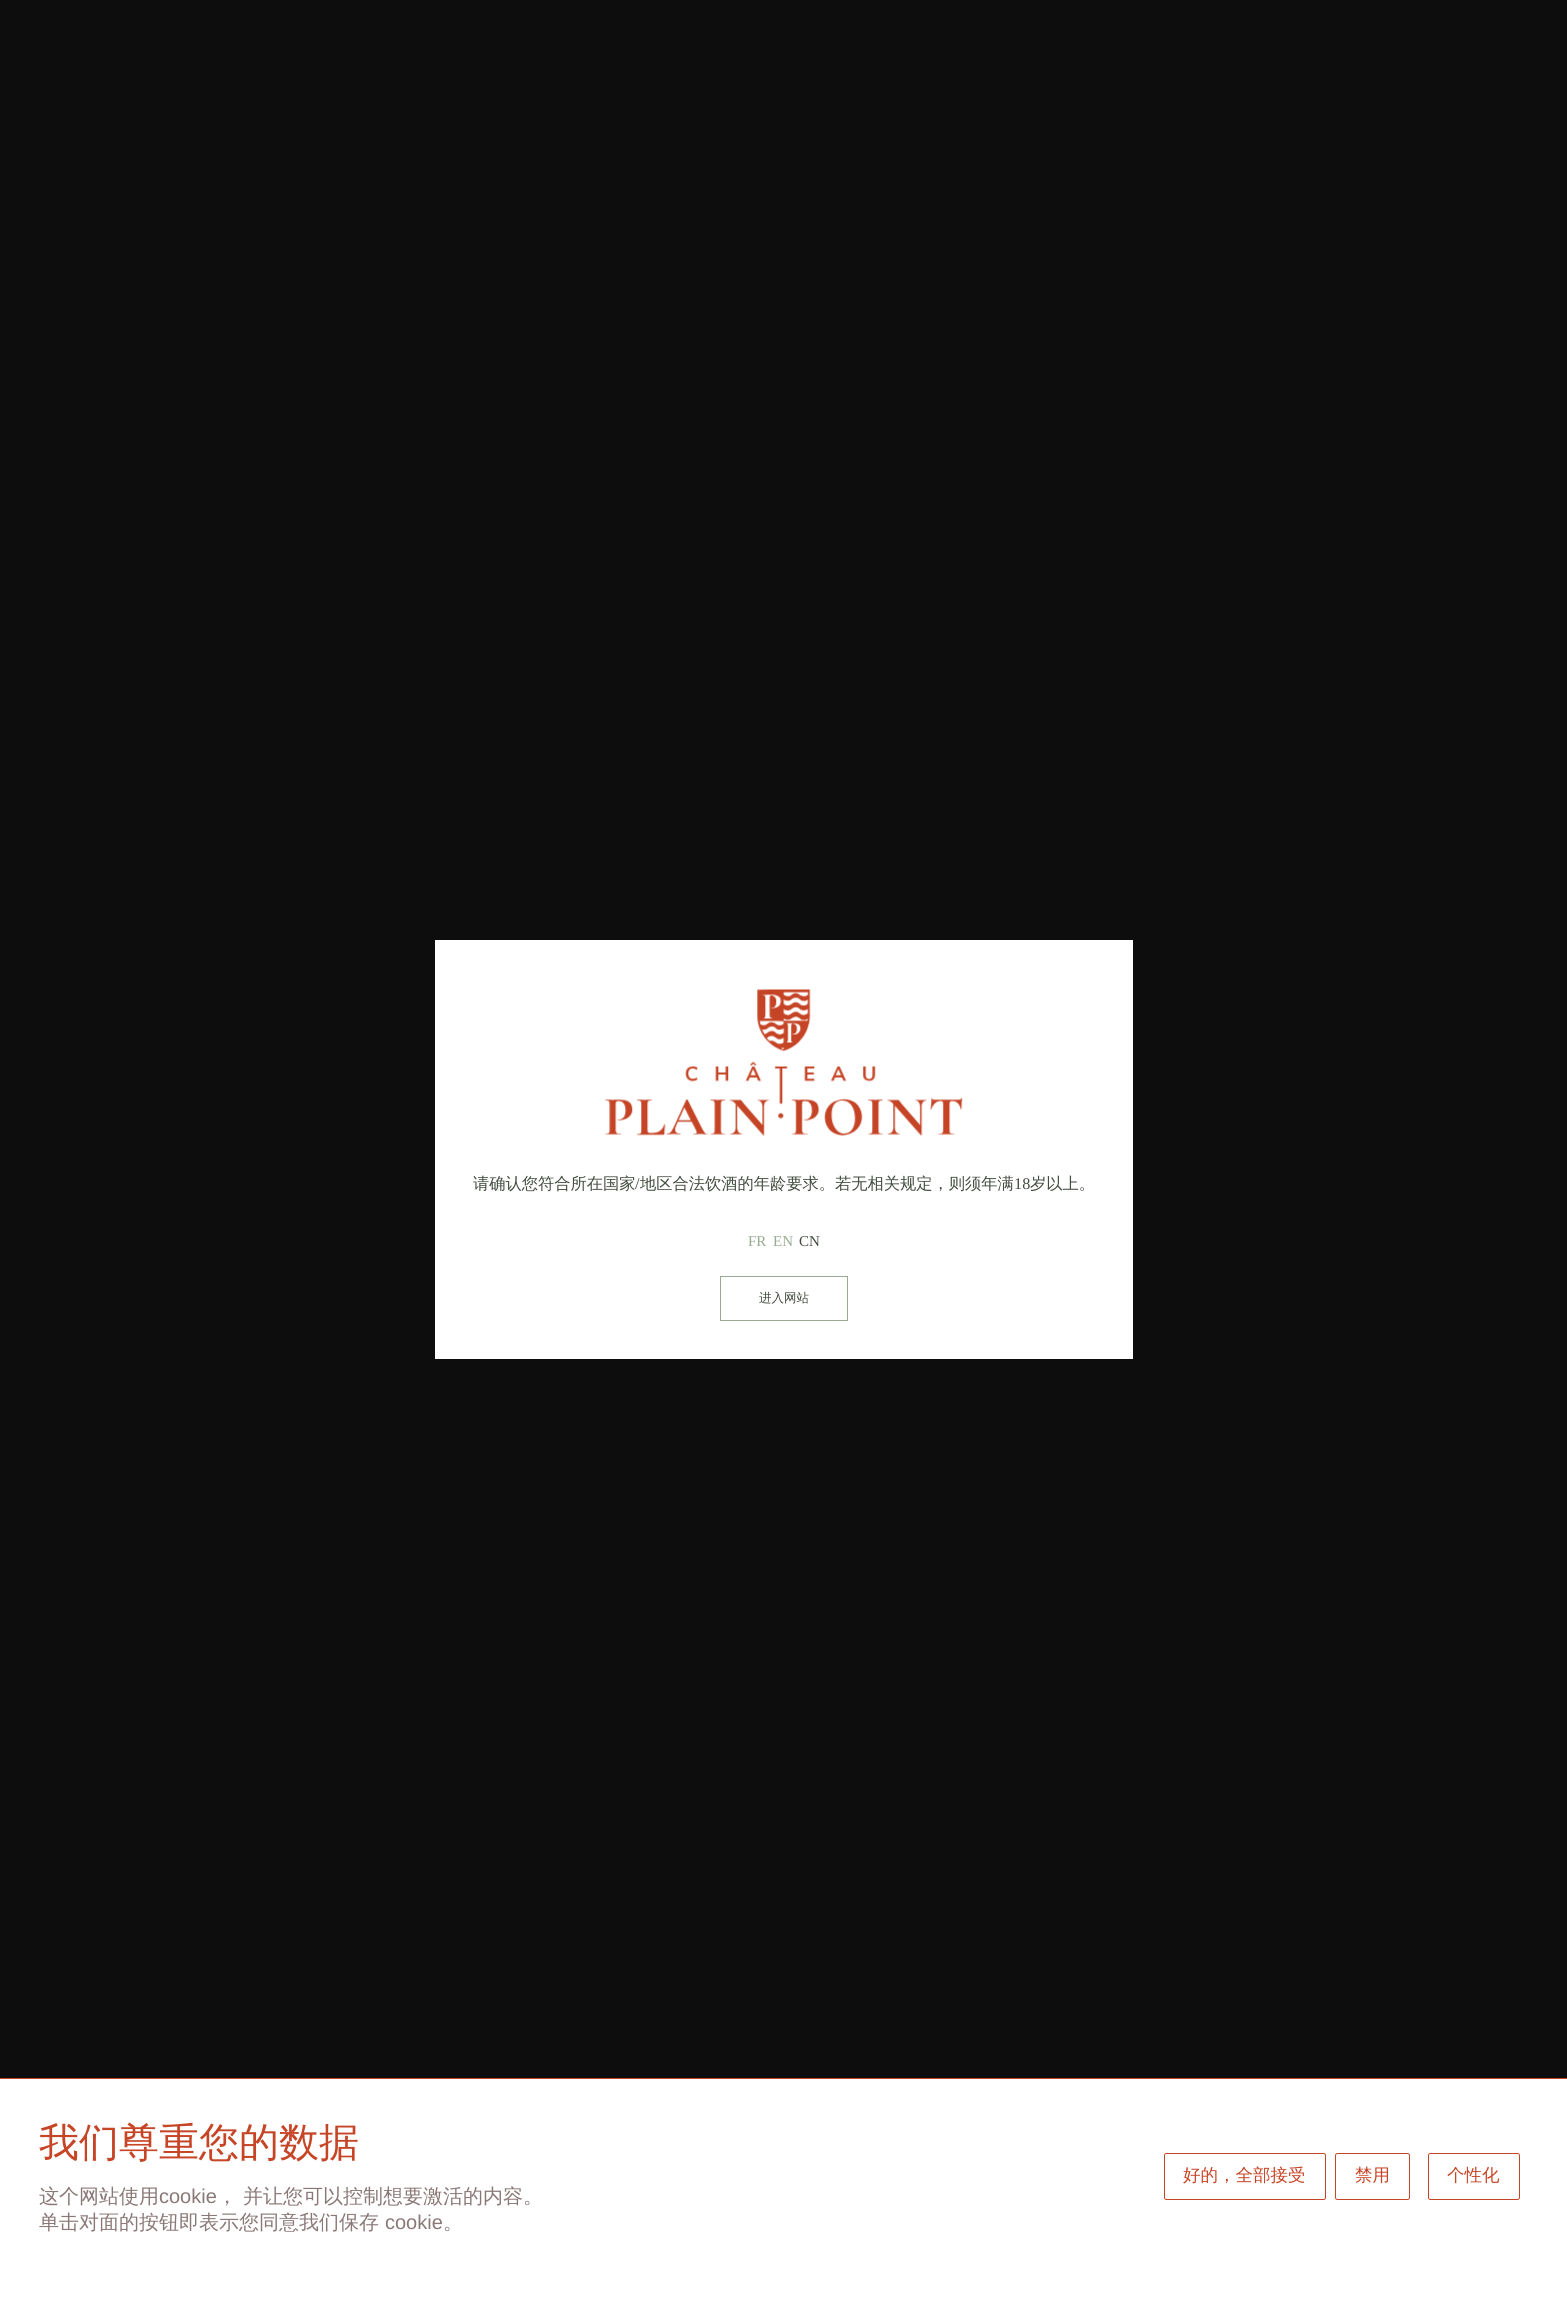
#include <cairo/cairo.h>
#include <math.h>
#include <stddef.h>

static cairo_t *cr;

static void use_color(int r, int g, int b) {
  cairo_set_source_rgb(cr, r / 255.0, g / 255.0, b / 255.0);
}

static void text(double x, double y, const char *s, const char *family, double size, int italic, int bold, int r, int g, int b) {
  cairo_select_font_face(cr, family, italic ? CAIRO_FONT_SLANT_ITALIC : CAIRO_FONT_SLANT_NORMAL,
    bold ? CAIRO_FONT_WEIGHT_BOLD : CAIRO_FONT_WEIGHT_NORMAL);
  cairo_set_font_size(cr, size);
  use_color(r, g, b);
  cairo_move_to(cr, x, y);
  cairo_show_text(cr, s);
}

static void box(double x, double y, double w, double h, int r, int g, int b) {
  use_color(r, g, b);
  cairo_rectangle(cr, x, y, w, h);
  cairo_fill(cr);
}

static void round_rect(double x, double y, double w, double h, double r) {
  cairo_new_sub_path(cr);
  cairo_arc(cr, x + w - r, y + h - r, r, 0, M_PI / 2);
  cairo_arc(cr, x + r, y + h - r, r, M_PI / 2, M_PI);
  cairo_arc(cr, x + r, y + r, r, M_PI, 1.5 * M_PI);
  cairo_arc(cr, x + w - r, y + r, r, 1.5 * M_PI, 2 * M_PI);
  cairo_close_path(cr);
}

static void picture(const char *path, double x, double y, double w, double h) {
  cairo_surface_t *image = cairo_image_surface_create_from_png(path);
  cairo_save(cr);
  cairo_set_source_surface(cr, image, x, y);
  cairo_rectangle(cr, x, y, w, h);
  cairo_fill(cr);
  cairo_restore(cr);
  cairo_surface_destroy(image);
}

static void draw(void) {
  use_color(13, 13, 13);
  cairo_paint(cr);
  box(435, 940, 698, 419, 255, 255, 255);
  picture("img_01.png", 605, 989, 358, 147);
  cairo_rectangle(cr, 720.5, 1276.5, 127, 44);
  use_color(153, 170, 147);
  cairo_set_line_width(cr, 1);
  cairo_stroke(cr);
  box(0, 2079, 1567, 219, 255, 255, 255);
  box(0, 2078, 1567, 1, 198, 69, 38);
  round_rect(1164.5, 2153.5, 161, 46, 2);
  cairo_stroke(cr);
  round_rect(1335.5, 2153.5, 74, 46, 2);
  cairo_stroke(cr);
  round_rect(1428.5, 2153.5, 91, 46, 2);
  cairo_stroke(cr);
  text(473, 1189, "请确认您符合所在国家", "WenQuanYi Zen Hei Medium", 16.25, 0, 0, 66, 76, 63);
  text(635, 1189, "/", "Liberation Serif", 16.25, 0, 0, 66, 76, 63);
  text(640, 1189, "地区合法饮酒的年龄要求。若无相关规定，则须年满", "WenQuanYi Zen Hei Medium", 16.25, 0, 0, 66, 76, 63);
  text(1014, 1189, "18", "Liberation Serif", 16.25, 0, 0, 66, 76, 63);
  text(1030, 1189, "岁以上。", "WenQuanYi Zen Hei Medium", 16.25, 0, 0, 66, 76, 63);
  text(748, 1246, "FR", "Liberation Serif", 15, 0, 0, 153, 170, 147);
  text(773, 1246, "EN", "Liberation Serif", 15, 0, 0, 153, 170, 147);
  text(799, 1246, "CN", "Liberation Serif", 15, 0, 0, 66, 76, 63);
  text(759, 1302, "进入网站", "WenQuanYi Zen Hei Medium", 12.5, 0, 0, 66, 76, 63);
  text(39, 2156, "我们尊重您的数据", "WenQuanYi Zen Hei Medium", 40, 0, 0, 198, 69, 38);
  text(39, 2203, "这个网站使用", "WenQuanYi Zen Hei Medium", 20, 0, 0, 138, 120, 119);
  text(159, 2203, "cookie", "Liberation Sans", 20, 0, 0, 138, 120, 119);
  text(217, 2203, "， 并让您可以控制想要激活的内容。", "WenQuanYi Zen Hei Medium", 20, 0, 0, 138, 120, 119);
  text(39, 2229, "单击对面的按钮即表示您同意我们保存", "WenQuanYi Zen Hei Medium", 20, 0, 0, 138, 120, 119);
  text(385, 2229, "cookie", "Liberation Sans", 20, 0, 0, 138, 120, 119);
  text(443, 2229, "。", "WenQuanYi Zen Hei Medium", 20, 0, 0, 138, 120, 119);
  text(1183, 2181, "好的，全部接受", "WenQuanYi Zen Hei Medium", 17.5, 0, 0, 198, 69, 38);
  text(1355, 2181, "禁用", "WenQuanYi Zen Hei Medium", 17.5, 0, 0, 198, 69, 38);
  text(1447, 2181, "个性化", "WenQuanYi Zen Hei Medium", 17.5, 0, 0, 198, 69, 38);
}

int main(void) {
  cairo_surface_t *surface = cairo_image_surface_create(CAIRO_FORMAT_RGB24, 1567, 2298);
  cr = cairo_create(surface);
  cairo_font_options_t *options = cairo_font_options_create();
  cairo_font_options_set_hint_metrics(options, CAIRO_HINT_METRICS_OFF);
  cairo_font_options_set_hint_style(options, CAIRO_HINT_STYLE_NONE);
  cairo_set_font_options(cr, options);
  cairo_set_miter_limit(cr, 4);
  draw();
  cairo_surface_write_to_png(surface, "out.png");
  cairo_font_options_destroy(options);
  cairo_destroy(cr);
  cairo_surface_destroy(surface);
  return 0;
}
